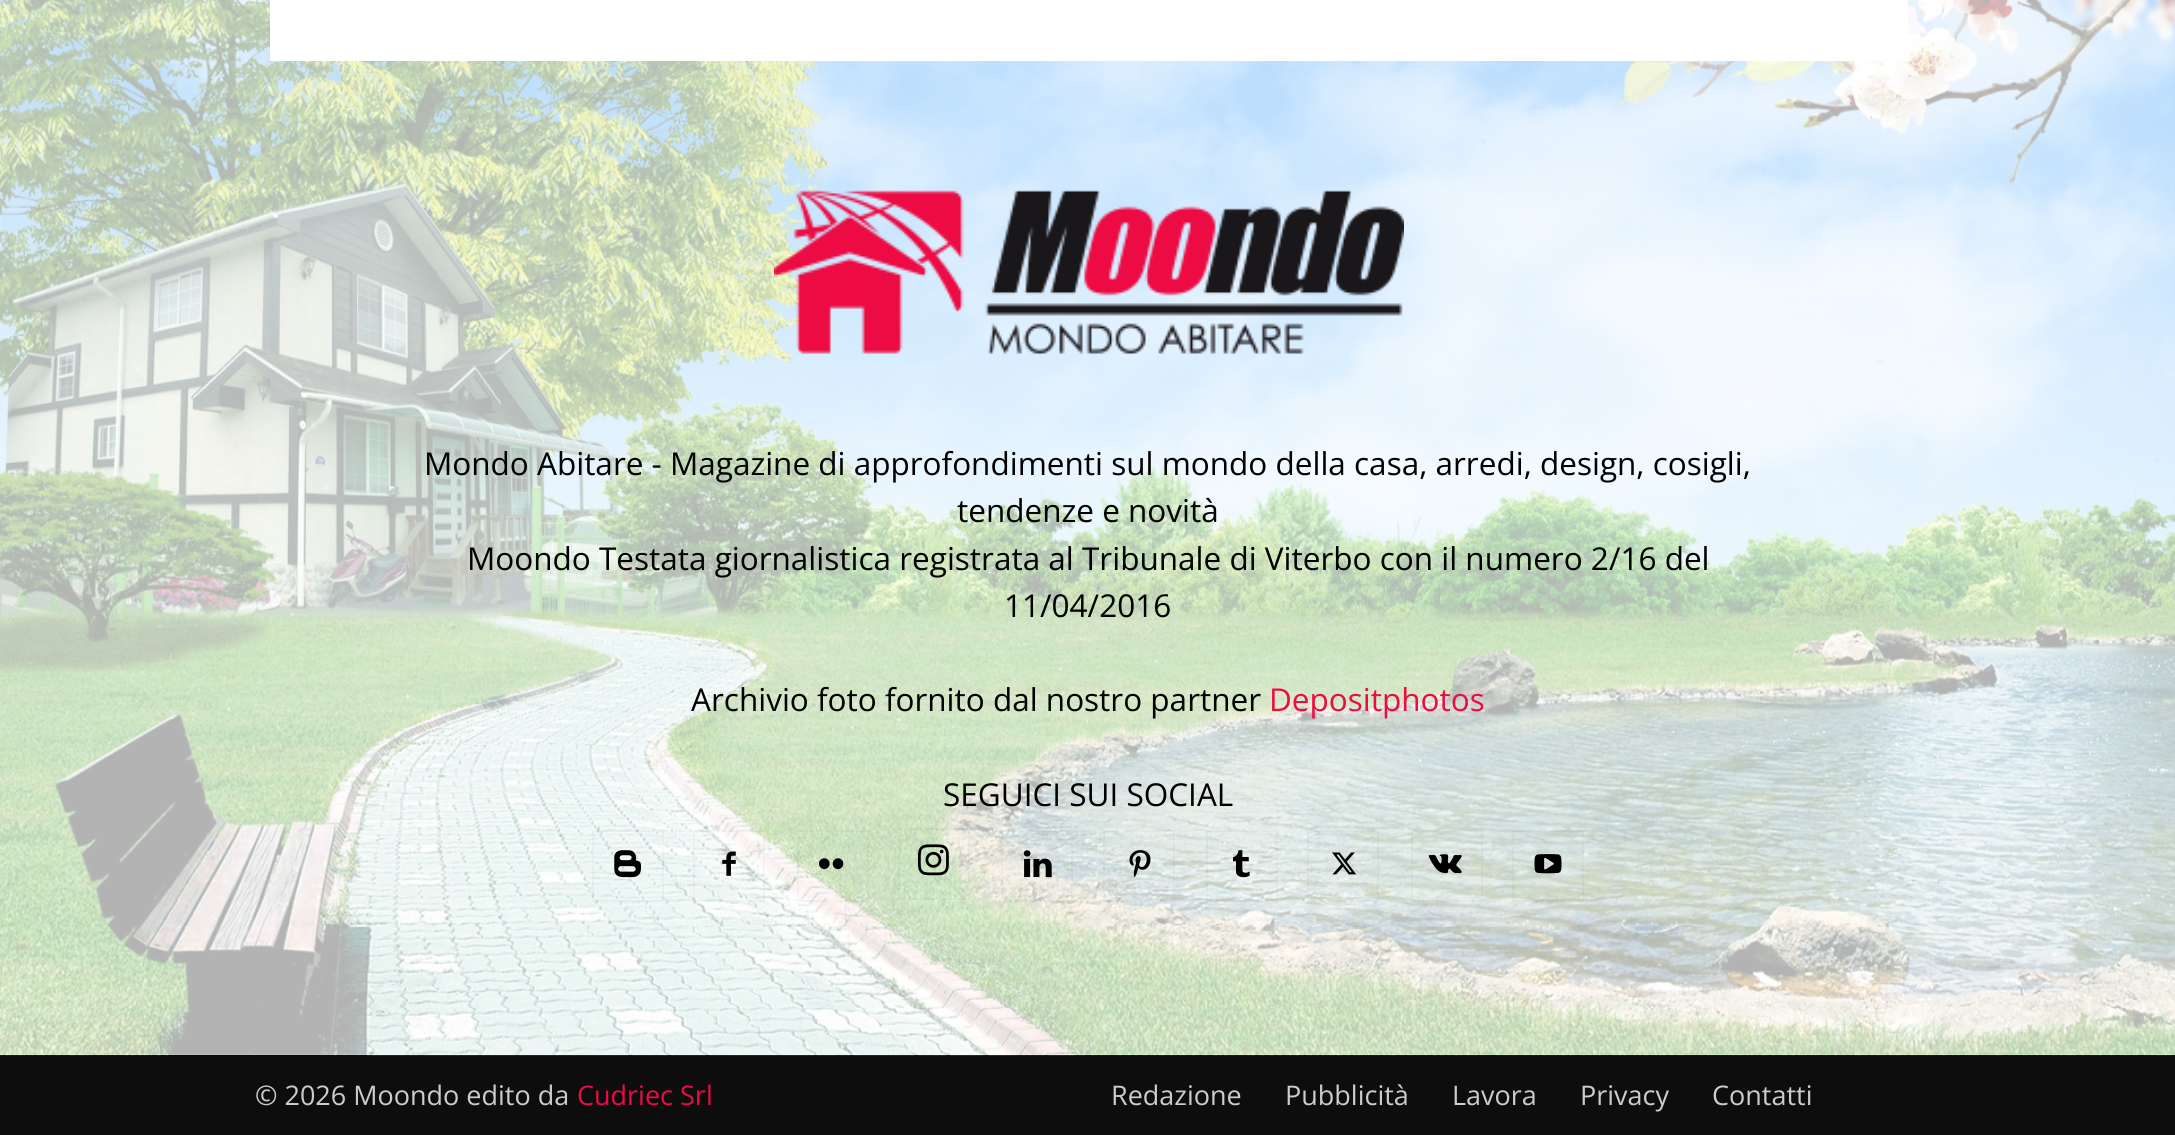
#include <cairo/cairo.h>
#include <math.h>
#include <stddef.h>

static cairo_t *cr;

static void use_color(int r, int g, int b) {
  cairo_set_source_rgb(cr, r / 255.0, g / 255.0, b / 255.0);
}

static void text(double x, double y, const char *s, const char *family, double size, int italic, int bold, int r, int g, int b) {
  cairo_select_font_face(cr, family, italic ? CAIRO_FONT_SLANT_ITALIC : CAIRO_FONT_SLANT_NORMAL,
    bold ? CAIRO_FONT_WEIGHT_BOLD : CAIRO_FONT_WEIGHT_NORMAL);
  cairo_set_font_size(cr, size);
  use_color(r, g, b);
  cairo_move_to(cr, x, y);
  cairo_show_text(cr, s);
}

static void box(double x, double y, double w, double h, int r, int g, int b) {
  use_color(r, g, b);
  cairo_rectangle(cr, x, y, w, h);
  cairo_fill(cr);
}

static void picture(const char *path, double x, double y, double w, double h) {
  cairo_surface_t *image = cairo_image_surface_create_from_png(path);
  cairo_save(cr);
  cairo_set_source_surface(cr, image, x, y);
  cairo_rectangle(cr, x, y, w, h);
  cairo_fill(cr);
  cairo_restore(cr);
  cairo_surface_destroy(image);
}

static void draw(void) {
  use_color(13, 13, 13);
  cairo_paint(cr);
  box(0, 0, 2175, 1055, 255, 255, 255);
  picture("img_01.png", 0, 0, 2175, 1056);
  box(270, 0, 1638, 61, 255, 255, 255);
  picture("img_02.png", 774, 190, 630, 164);
  picture("img_03.png", 614, 850, 27, 28);
  cairo_rectangle(cr, 593, 831, 70, 70);
  cairo_set_source_rgba(cr, 0, 0, 0, 0.03);
  cairo_stroke(cr);
  picture("img_04.png", 722, 851, 14, 25);
  cairo_rectangle(cr, 694, 831, 70, 70);
  cairo_stroke(cr);
  picture("img_05.png", 819, 858, 25, 12);
  cairo_rectangle(cr, 798, 831, 70, 70);
  cairo_stroke(cr);
  picture("img_06.png", 918, 844, 31, 32);
  cairo_rectangle(cr, 899, 829, 70, 70);
  cairo_stroke(cr);
  picture("img_07.png", 1023, 850, 29, 28);
  cairo_rectangle(cr, 1002, 831, 70, 70);
  cairo_stroke(cr);
  picture("img_08.png", 1129, 850, 22, 27);
  cairo_rectangle(cr, 1104, 831, 70, 70);
  cairo_stroke(cr);
  picture("img_09.png", 1233, 850, 17, 28);
  cairo_rectangle(cr, 1207, 831, 70, 70);
  cairo_stroke(cr);
  picture("img_10.png", 1332, 852, 25, 23);
  cairo_rectangle(cr, 1308, 831, 70, 70);
  cairo_stroke(cr);
  picture("img_11.png", 1428, 854, 34, 20);
  cairo_rectangle(cr, 1412, 831, 70, 70);
  cairo_stroke(cr);
  picture("img_12.png", 1534, 854, 28, 20);
  cairo_rectangle(cr, 1513, 831, 70, 70);
  cairo_stroke(cr);
  text(424, 475, "Mondo Abitare - Magazine di approfondimenti sul mondo della casa, arredi, design, cosigli,", "Open Sans", 31.5, 0, 0, 0, 0, 0);
  text(957, 522, "tendenze e novità", "Open Sans", 31.5, 0, 0, 0, 0, 0);
  text(467, 570, "Moondo Testata giornalistica registrata al Tribunale di Viterbo con il numero 2/16 del", "Open Sans", 31.5, 0, 0, 0, 0, 0);
  text(1004, 617, "11/04/2016", "Open Sans", 31.5, 0, 0, 0, 0, 0);
  text(691, 711, "Archivio foto fornito dal nostro partner", "Open Sans", 31.5, 0, 0, 0, 0, 0);
  text(1269, 711, "Depositphotos", "Open Sans", 31.5, 0, 0, 236, 11, 67);
  text(943, 806, "SEGUICI SUI SOCIAL", "Open Sans", 31.5, 0, 0, 0, 0, 0);
  text(255, 1105, "© 2026 Moondo edito da", "Open Sans", 27, 0, 0, 204, 204, 204);
  text(577, 1105, "Cudriec Srl", "Open Sans", 27, 0, 0, 236, 11, 67);
  text(1111, 1105, "Redazione", "Open Sans", 27, 0, 0, 204, 204, 204);
  text(1285, 1105, "Pubblicità", "Open Sans", 27, 0, 0, 204, 204, 204);
  text(1452, 1105, "Lavora", "Open Sans", 27, 0, 0, 204, 204, 204);
  text(1580, 1105, "Privacy", "Open Sans", 27, 0, 0, 204, 204, 204);
  text(1712, 1105, "Contatti", "Open Sans", 27, 0, 0, 204, 204, 204);
}

int main(void) {
  cairo_surface_t *surface = cairo_image_surface_create(CAIRO_FORMAT_RGB24, 2175, 1135);
  cr = cairo_create(surface);
  cairo_font_options_t *options = cairo_font_options_create();
  cairo_font_options_set_hint_metrics(options, CAIRO_HINT_METRICS_OFF);
  cairo_font_options_set_hint_style(options, CAIRO_HINT_STYLE_NONE);
  cairo_set_font_options(cr, options);
  cairo_set_miter_limit(cr, 4);
  draw();
  cairo_surface_write_to_png(surface, "out.png");
  cairo_font_options_destroy(options);
  cairo_destroy(cr);
  cairo_surface_destroy(surface);
  return 0;
}
